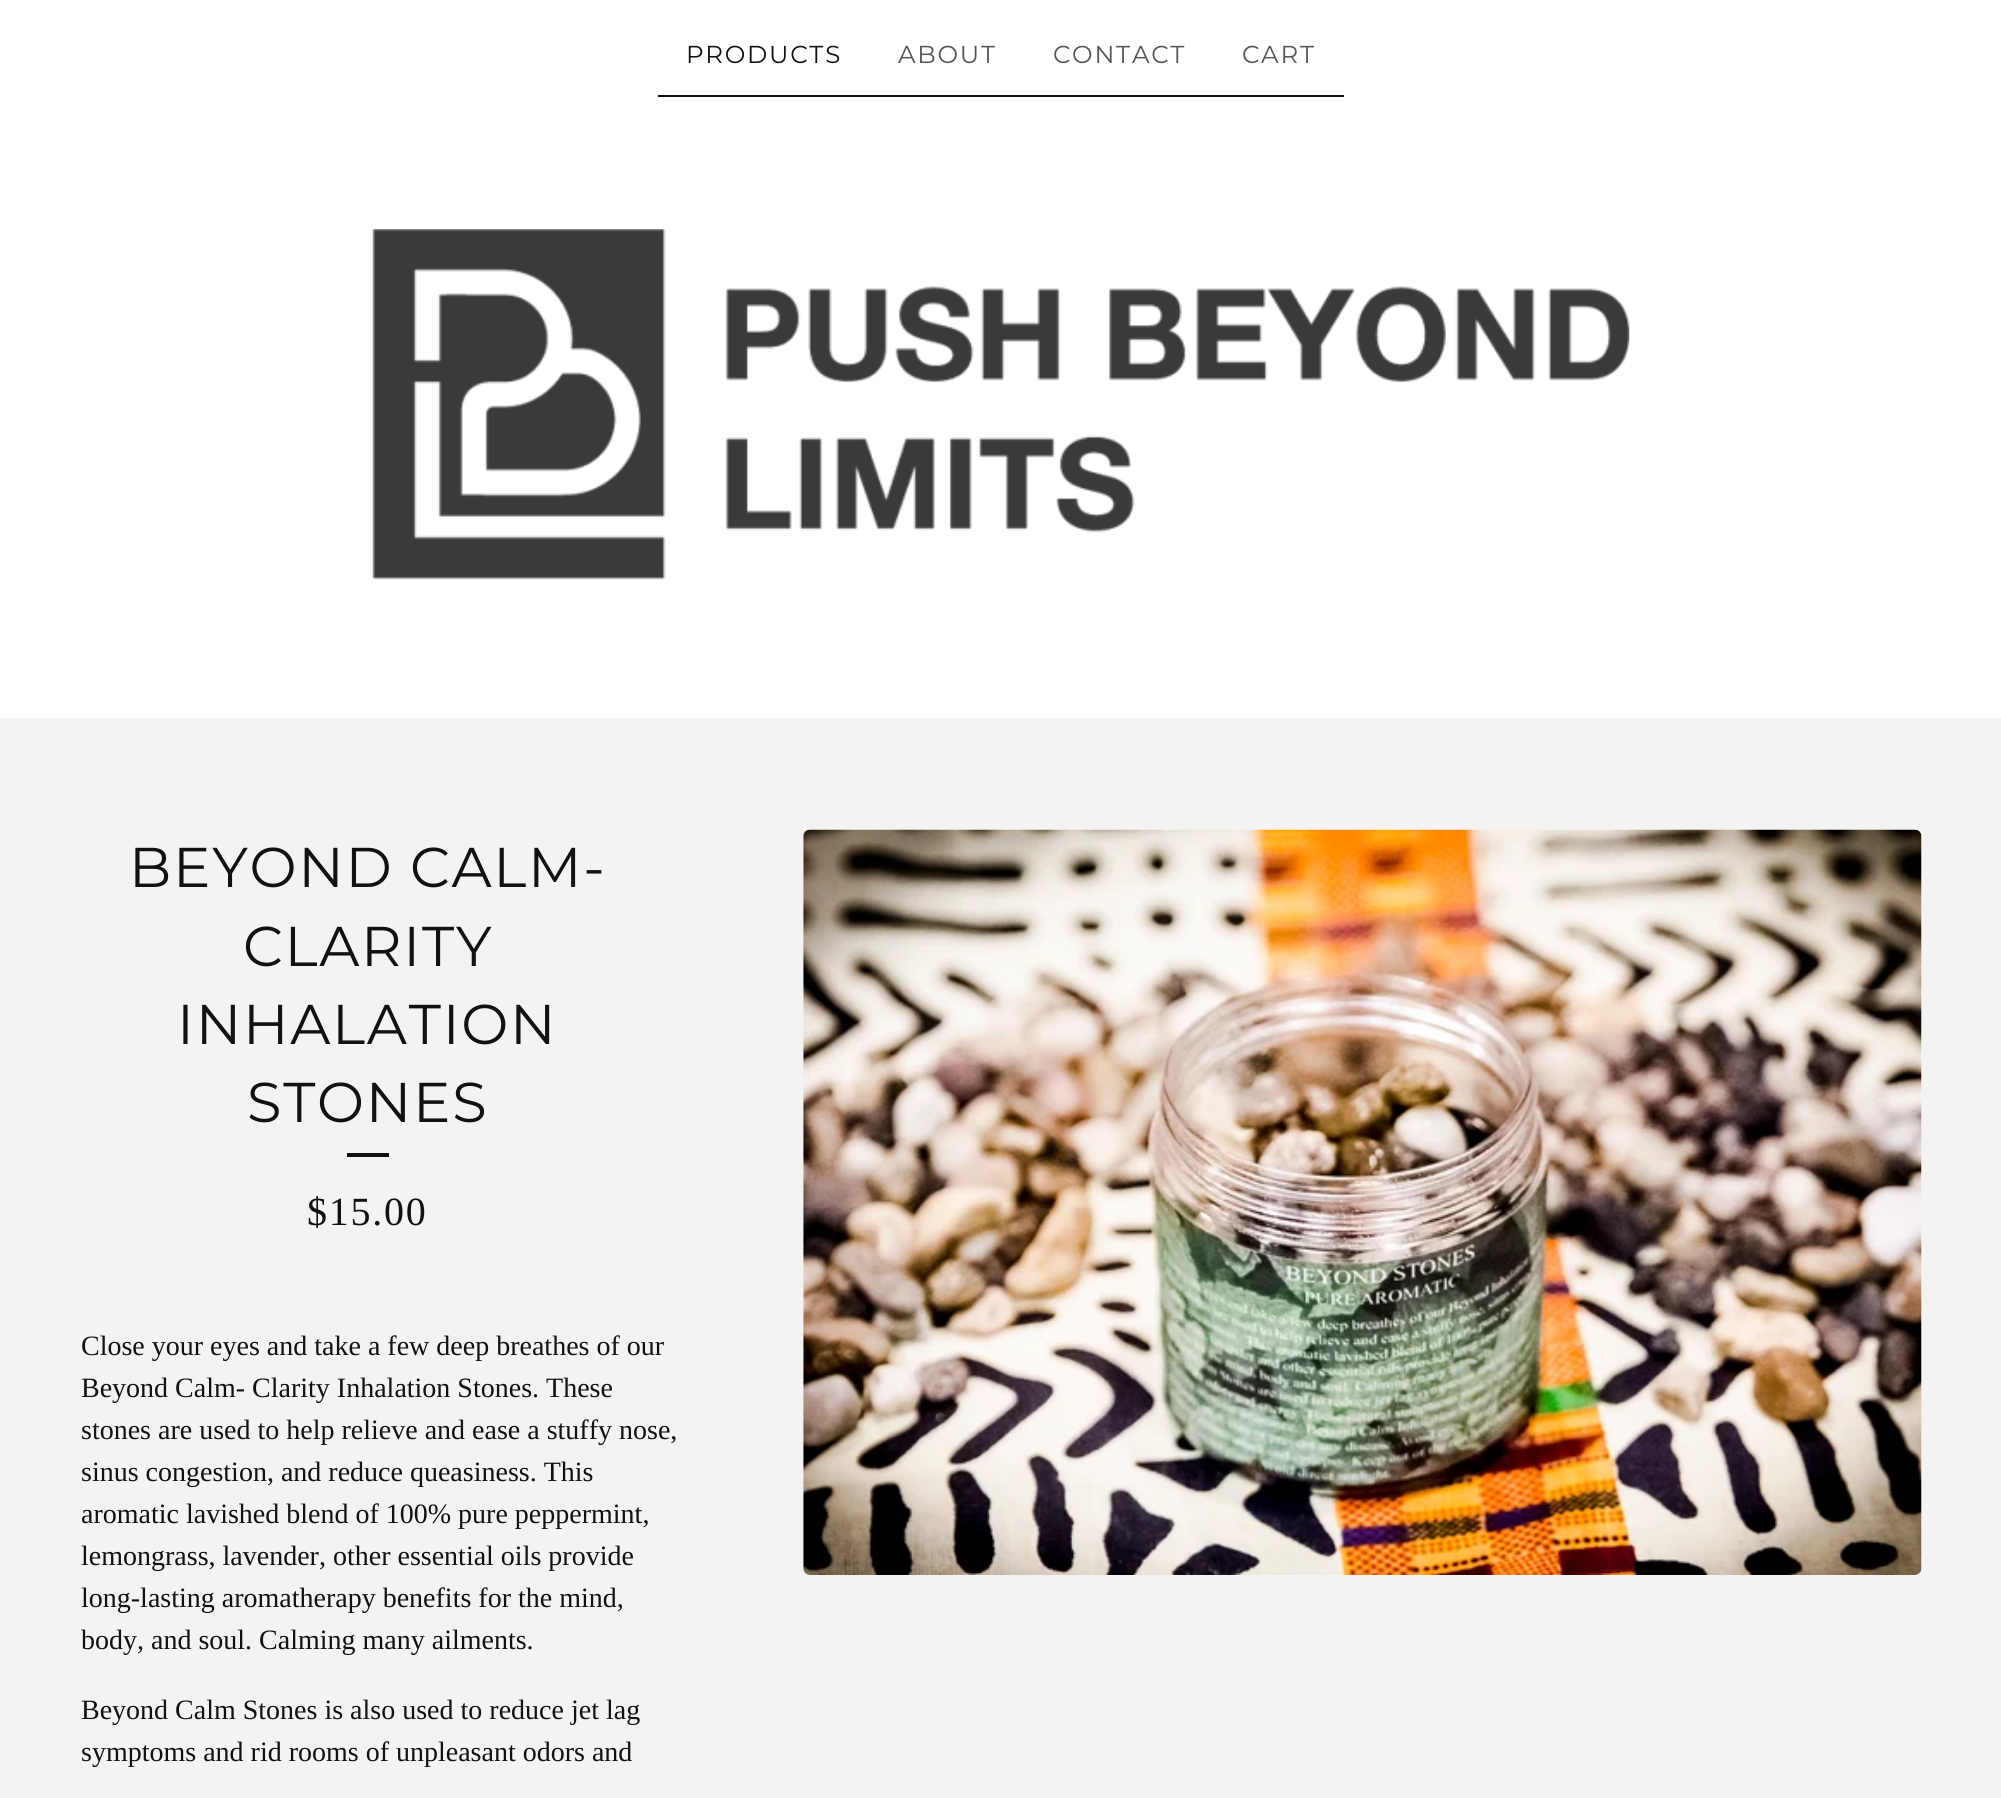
#include <cairo/cairo.h>
#include <math.h>
#include <stddef.h>

static cairo_t *cr;

static void use_color(int r, int g, int b) {
  cairo_set_source_rgb(cr, r / 255.0, g / 255.0, b / 255.0);
}

static void text(double x, double y, const char *s, const char *family, double size, int italic, int bold, int r, int g, int b) {
  cairo_select_font_face(cr, family, italic ? CAIRO_FONT_SLANT_ITALIC : CAIRO_FONT_SLANT_NORMAL,
    bold ? CAIRO_FONT_WEIGHT_BOLD : CAIRO_FONT_WEIGHT_NORMAL);
  cairo_set_font_size(cr, size);
  use_color(r, g, b);
  cairo_move_to(cr, x, y);
  cairo_show_text(cr, s);
}

static void spaced_text(double x, double y, const char *s, double letter, double word) {
  cairo_move_to(cr, x, y);
  while (*s) {
    char ch[5] = {0};
    int n = 0;
    do ch[n++] = *s++; while ((*s & 0xC0) == 0x80);
    cairo_show_text(cr, ch);
    cairo_rel_move_to(cr, letter + word * (*ch == ' '), 0);
  }
}

static void box(double x, double y, double w, double h, int r, int g, int b) {
  use_color(r, g, b);
  cairo_rectangle(cr, x, y, w, h);
  cairo_fill(cr);
}

static void picture(const char *path, double x, double y, double w, double h) {
  cairo_surface_t *image = cairo_image_surface_create_from_png(path);
  cairo_save(cr);
  cairo_set_source_surface(cr, image, x, y);
  cairo_rectangle(cr, x, y, w, h);
  cairo_fill(cr);
  cairo_restore(cr);
  cairo_surface_destroy(image);
}

static void draw(void) {
  use_color(255, 255, 255);
  cairo_paint(cr);
  box(658, 95, 686, 2, 17, 17, 17);
  picture("img_01.png", 372, 229, 1258, 351);
  box(0, 718, 2001, 1080, 243, 243, 243);
  box(347, 1153, 42, 4, 17, 17, 17);
  picture("img_02.png", 803, 829, 1119, 746);
  cairo_select_font_face(cr, "Montserrat", CAIRO_FONT_SLANT_NORMAL, CAIRO_FONT_WEIGHT_NORMAL);
  cairo_set_font_size(cr, 24.5);
  spaced_text(686, 63, "PRODUCTS", 1.75, 0);
  use_color(85, 85, 85);
  spaced_text(898, 63, "ABOUT", 1.75, 0);
  spaced_text(1053, 63, "CONTACT", 1.75, 0);
  spaced_text(1242, 63, "CART", 1.75, 0);
  cairo_set_font_size(cr, 56);
  use_color(17, 17, 17);
  spaced_text(129, 887, "BEYOND CALM-", 1.75, 0);
  spaced_text(243, 966, "CLARITY", 1.75, 0);
  spaced_text(177, 1044, "INHALATION", 1.75, 0);
  spaced_text(247, 1122, "STONES", 1.75, 0);
  cairo_select_font_face(cr, "Liberation Serif", CAIRO_FONT_SLANT_NORMAL, CAIRO_FONT_WEIGHT_NORMAL);
  cairo_set_font_size(cr, 40);
  spaced_text(307, 1225, "$15.00", 1.75, 0);
  text(81, 1355, "Close your eyes and take a few deep breathes of our", "Liberation Serif", 28, 0, 0, 17, 17, 17);
  text(81, 1397, "Beyond Calm- Clarity Inhalation Stones. These", "Liberation Serif", 28, 0, 0, 17, 17, 17);
  text(81, 1439, "stones are used to help relieve and ease a stuffy nose,", "Liberation Serif", 28, 0, 0, 17, 17, 17);
  text(81, 1481, "sinus congestion, and reduce queasiness. This", "Liberation Serif", 28, 0, 0, 17, 17, 17);
  text(81, 1523, "aromatic lavished blend of 100% pure peppermint,", "Liberation Serif", 28, 0, 0, 17, 17, 17);
  text(81, 1565, "lemongrass, lavender, other essential oils provide", "Liberation Serif", 28, 0, 0, 17, 17, 17);
  text(81, 1607, "long-lasting aromatherapy benefits for the mind,", "Liberation Serif", 28, 0, 0, 17, 17, 17);
  text(81, 1649, "body, and soul. Calming many ailments.", "Liberation Serif", 28, 0, 0, 17, 17, 17);
  text(81, 1719, "Beyond Calm Stones is also used to reduce jet lag", "Liberation Serif", 28, 0, 0, 17, 17, 17);
  text(81, 1761, "symptoms and rid rooms of unpleasant odors and", "Liberation Serif", 28, 0, 0, 17, 17, 17);
}

int main(void) {
  cairo_surface_t *surface = cairo_image_surface_create(CAIRO_FORMAT_RGB24, 2001, 1798);
  cr = cairo_create(surface);
  cairo_font_options_t *options = cairo_font_options_create();
  cairo_font_options_set_hint_metrics(options, CAIRO_HINT_METRICS_OFF);
  cairo_font_options_set_hint_style(options, CAIRO_HINT_STYLE_NONE);
  cairo_set_font_options(cr, options);
  cairo_set_miter_limit(cr, 4);
  draw();
  cairo_surface_write_to_png(surface, "out.png");
  cairo_font_options_destroy(options);
  cairo_destroy(cr);
  cairo_surface_destroy(surface);
  return 0;
}
